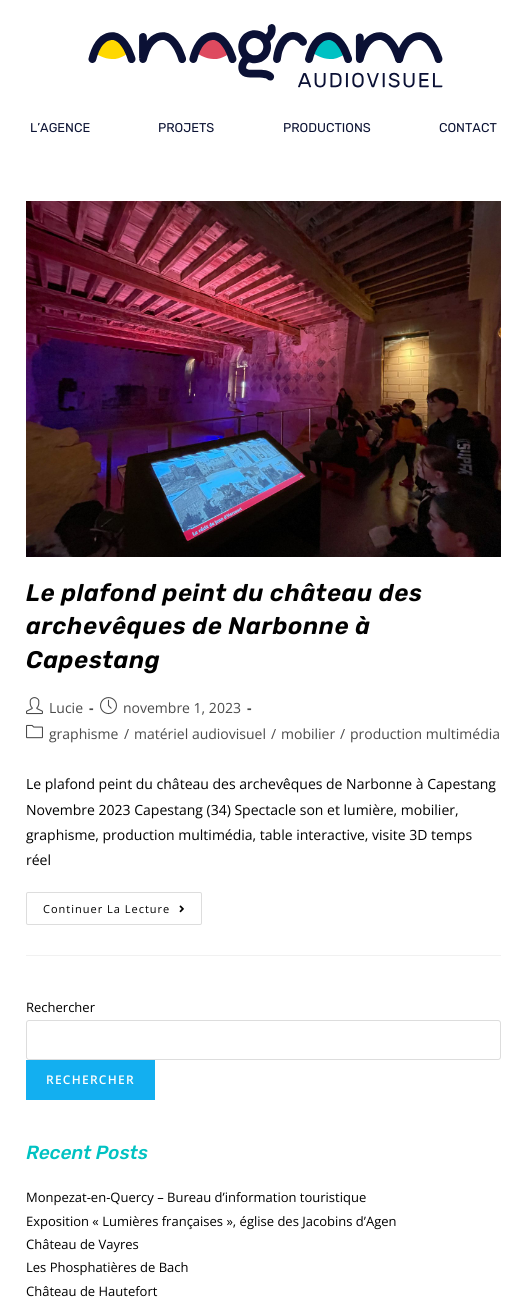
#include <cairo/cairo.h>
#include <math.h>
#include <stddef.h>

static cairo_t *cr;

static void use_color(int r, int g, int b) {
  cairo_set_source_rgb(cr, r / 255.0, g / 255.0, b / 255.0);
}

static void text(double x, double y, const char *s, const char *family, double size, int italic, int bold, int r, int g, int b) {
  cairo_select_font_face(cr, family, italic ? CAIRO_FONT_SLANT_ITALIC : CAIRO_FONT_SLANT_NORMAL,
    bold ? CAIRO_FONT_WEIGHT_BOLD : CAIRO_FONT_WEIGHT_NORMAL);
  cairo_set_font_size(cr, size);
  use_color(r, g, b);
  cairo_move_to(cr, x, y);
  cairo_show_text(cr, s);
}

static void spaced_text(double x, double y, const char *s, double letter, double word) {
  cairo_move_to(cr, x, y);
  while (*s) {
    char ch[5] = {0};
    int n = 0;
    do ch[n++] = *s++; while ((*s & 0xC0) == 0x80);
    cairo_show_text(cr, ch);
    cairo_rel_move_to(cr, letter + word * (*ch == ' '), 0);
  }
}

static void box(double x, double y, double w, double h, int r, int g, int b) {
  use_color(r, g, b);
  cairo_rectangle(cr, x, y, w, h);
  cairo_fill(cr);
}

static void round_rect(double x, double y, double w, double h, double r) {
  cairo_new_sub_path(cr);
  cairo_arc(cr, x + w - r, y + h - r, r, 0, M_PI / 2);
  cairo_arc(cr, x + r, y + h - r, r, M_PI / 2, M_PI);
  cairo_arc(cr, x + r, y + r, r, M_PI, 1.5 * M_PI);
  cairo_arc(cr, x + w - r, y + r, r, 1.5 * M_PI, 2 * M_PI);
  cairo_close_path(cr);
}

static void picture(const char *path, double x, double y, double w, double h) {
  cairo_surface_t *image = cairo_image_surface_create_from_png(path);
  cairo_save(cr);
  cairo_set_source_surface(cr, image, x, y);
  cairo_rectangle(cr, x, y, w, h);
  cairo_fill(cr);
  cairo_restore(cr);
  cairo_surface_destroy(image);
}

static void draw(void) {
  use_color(255, 255, 255);
  cairo_paint(cr);
  picture("img_01.png", 88, 24, 355, 64);
  box(26, 955, 475, 1, 241, 241, 241);
  picture("img_02.png", 26, 201, 475, 356);
  picture("img_03.png", 26, 697, 17, 18);
  picture("img_04.png", 100, 697, 17, 18);
  picture("img_05.png", 26, 724, 17, 15);
  round_rect(26.5, 892.5, 175, 32, 1.5);
  use_color(221, 221, 221);
  cairo_set_line_width(cr, 1);
  cairo_stroke(cr);
  picture("img_06.png", 179, 905, 5, 8);
  round_rect(26.5, 1020.5, 474, 39, 2.5);
  cairo_stroke(cr);
  box(26, 1060, 129, 40, 19, 175, 240);
  text(30, 132, "L’AGENCE", "Rubik", 12.75, 0, 0, 12, 19, 52);
  text(158, 132, "PROJETS", "Rubik", 12.75, 0, 0, 12, 19, 52);
  text(283, 132, "PRODUCTIONS", "Rubik", 12.75, 0, 0, 12, 19, 52);
  text(439, 132, "CONTACT", "Rubik", 12.75, 0, 0, 12, 19, 52);
  cairo_select_font_face(cr, "Rubik SemiBold", CAIRO_FONT_SLANT_ITALIC, CAIRO_FONT_WEIGHT_NORMAL);
  cairo_set_font_size(cr, 24);
  use_color(0, 0, 0);
  spaced_text(26, 601, "Le plafond peint du château des", 0.6, 0);
  spaced_text(26, 634, "archevêques de Narbonne à", 0.6, 0);
  spaced_text(26, 668, "Capestang", 0.6, 0);
  text(49, 713, "Lucie", "Open Sans", 14, 0, 0, 74, 74, 74);
  text(89, 713, "-", "Open Sans", 14, 0, 1, 74, 74, 74);
  text(123, 713, "novembre 1, 2023", "Open Sans", 14, 0, 0, 74, 74, 74);
  text(247, 713, "-", "Open Sans", 14, 0, 1, 74, 74, 74);
  text(49, 739, "graphisme", "Open Sans", 14, 0, 0, 74, 74, 74);
  text(124, 739, "/", "Open Sans", 14, 0, 0, 74, 74, 74);
  text(134, 739, "matériel audiovisuel", "Open Sans", 14, 0, 0, 74, 74, 74);
  text(271, 739, "/", "Open Sans", 14, 0, 0, 74, 74, 74);
  text(281, 739, "mobilier", "Open Sans", 14, 0, 0, 74, 74, 74);
  text(340, 739, "/", "Open Sans", 14, 0, 0, 74, 74, 74);
  text(350, 739, "production multimédia", "Open Sans", 14, 0, 0, 74, 74, 74);
  text(26, 789, "Le plafond peint du château des archevêques de Narbonne à Capestang", "Open Sans", 14, 0, 0, 0, 0, 0);
  text(26, 815, "Novembre 2023 Capestang (34) Spectacle son et lumière, mobilier,", "Open Sans", 14, 0, 0, 0, 0, 0);
  text(26, 840, "graphisme, production multimédia, table interactive, visite 3D temps", "Open Sans", 14, 0, 0, 0, 0, 0);
  text(26, 865, "réel", "Open Sans", 14, 0, 0, 0, 0, 0);
  cairo_set_font_size(cr, 11);
  spaced_text(43, 913, "Continuer La Lecture", 1, 0);
  text(26, 1012, "Rechercher", "Open Sans", 13, 0, 0, 0, 0, 0);
  cairo_select_font_face(cr, "Open Sans SemiBold", CAIRO_FONT_SLANT_NORMAL, CAIRO_FONT_WEIGHT_NORMAL);
  cairo_set_font_size(cr, 12);
  use_color(255, 255, 255);
  spaced_text(46, 1084, "RECHERCHER", 1.25, 0);
  text(26, 1159, "Recent Posts", "Rubik Medium", 19, 1, 0, 0, 194, 194);
  text(26, 1202, "Monpezat-en-Quercy – Bureau d’information touristique", "Open Sans", 13, 0, 0, 0, 0, 0);
  text(26, 1226, "Exposition « Lumières françaises », église des Jacobins d’Agen", "Open Sans", 13, 0, 0, 0, 0, 0);
  text(26, 1249, "Château de Vayres", "Open Sans", 13, 0, 0, 0, 0, 0);
  text(26, 1272, "Les Phosphatières de Bach", "Open Sans", 13, 0, 0, 0, 0, 0);
  text(26, 1296, "Château de Hautefort", "Open Sans", 13, 0, 0, 0, 0, 0);
}

int main(void) {
  cairo_surface_t *surface = cairo_image_surface_create(CAIRO_FORMAT_RGB24, 527, 1297);
  cr = cairo_create(surface);
  cairo_font_options_t *options = cairo_font_options_create();
  cairo_font_options_set_hint_metrics(options, CAIRO_HINT_METRICS_OFF);
  cairo_font_options_set_hint_style(options, CAIRO_HINT_STYLE_NONE);
  cairo_set_font_options(cr, options);
  cairo_set_miter_limit(cr, 4);
  draw();
  cairo_surface_write_to_png(surface, "out.png");
  cairo_font_options_destroy(options);
  cairo_destroy(cr);
  cairo_surface_destroy(surface);
  return 0;
}
